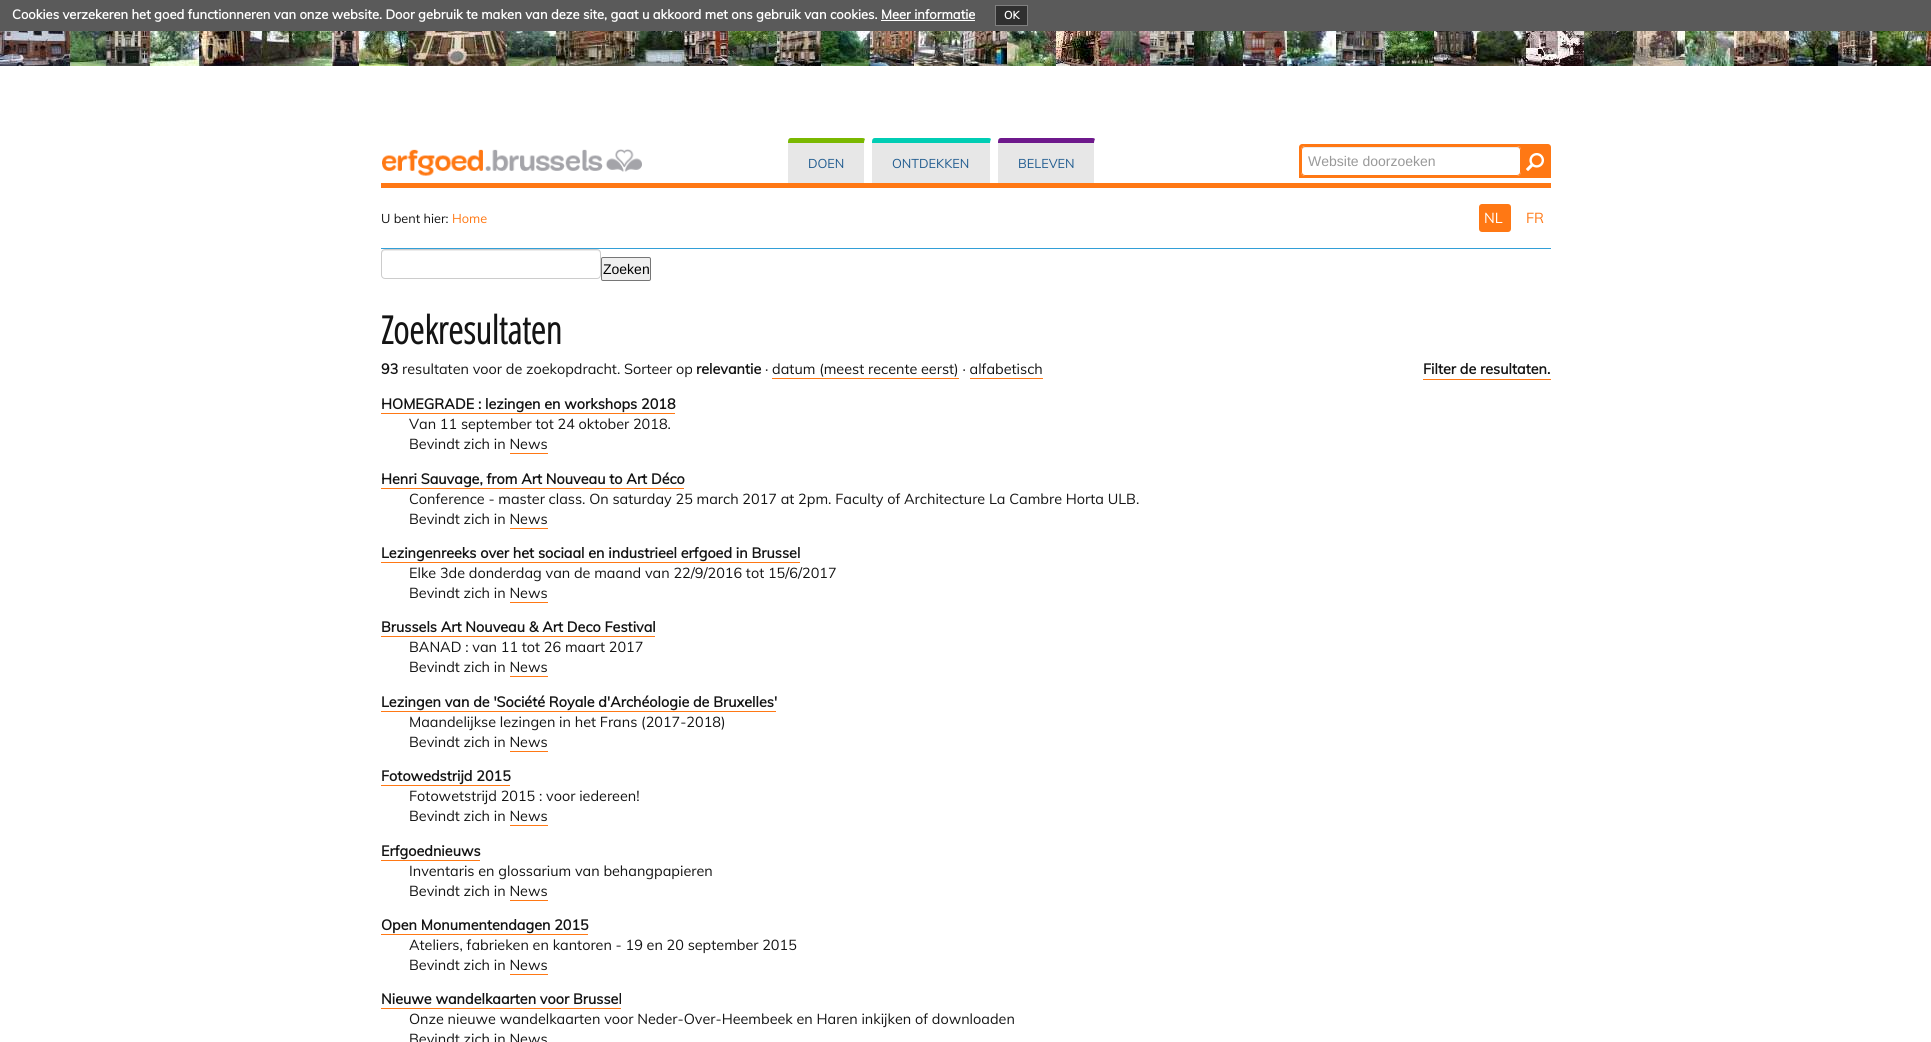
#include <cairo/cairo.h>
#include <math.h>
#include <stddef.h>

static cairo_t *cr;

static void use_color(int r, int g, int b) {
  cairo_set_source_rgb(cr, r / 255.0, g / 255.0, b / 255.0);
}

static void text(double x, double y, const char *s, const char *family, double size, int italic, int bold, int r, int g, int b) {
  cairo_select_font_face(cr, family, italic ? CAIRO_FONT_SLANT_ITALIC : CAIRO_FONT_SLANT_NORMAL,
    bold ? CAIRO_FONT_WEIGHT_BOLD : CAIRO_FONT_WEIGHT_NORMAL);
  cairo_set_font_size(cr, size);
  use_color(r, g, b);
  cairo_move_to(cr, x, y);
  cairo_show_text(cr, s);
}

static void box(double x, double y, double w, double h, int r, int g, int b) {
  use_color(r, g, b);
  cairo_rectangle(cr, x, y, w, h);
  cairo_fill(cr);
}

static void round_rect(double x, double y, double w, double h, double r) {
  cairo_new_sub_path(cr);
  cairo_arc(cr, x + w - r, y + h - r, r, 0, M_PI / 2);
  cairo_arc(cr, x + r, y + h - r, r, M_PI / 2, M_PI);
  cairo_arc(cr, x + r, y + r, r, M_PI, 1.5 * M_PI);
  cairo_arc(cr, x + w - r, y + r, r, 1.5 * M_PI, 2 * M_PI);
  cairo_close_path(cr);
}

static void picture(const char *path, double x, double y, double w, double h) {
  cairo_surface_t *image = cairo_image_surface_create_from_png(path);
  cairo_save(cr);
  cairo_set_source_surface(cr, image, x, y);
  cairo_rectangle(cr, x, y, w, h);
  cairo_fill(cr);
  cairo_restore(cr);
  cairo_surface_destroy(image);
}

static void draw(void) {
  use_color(255, 255, 255);
  cairo_paint(cr);
  picture("img_01.png", 0, 31, 1931, 35);
  box(0, 0, 1931, 31, 90, 90, 90);
  use_color(48, 48, 48);
  cairo_rectangle(cr, 995.5, 5.5, 32, 20);
  cairo_fill_preserve(cr);
  use_color(128, 128, 128);
  cairo_set_line_width(cr, 1);
  cairo_stroke(cr);
  box(881, 20, 94, 1, 255, 255, 255);
  picture("img_02.png", 382, 149, 260, 27);
  use_color(231, 231, 231);
  cairo_new_path(cr);
  cairo_move_to(cr, 791, 138);
  cairo_line_to(cr, 862, 138);
  cairo_curve_to(cr, 863.5, 138, 865, 139.5, 865, 141);
  cairo_line_to(cr, 865, 183);
  cairo_line_to(cr, 788, 183);
  cairo_line_to(cr, 788, 141);
  cairo_curve_to(cr, 788, 139.5, 789.5, 138, 791, 138);
  cairo_close_path(cr);
  cairo_fill(cr);
  use_color(122, 184, 0);
  cairo_new_path(cr);
  cairo_move_to(cr, 791, 138);
  cairo_curve_to(cr, 788, 138, 788, 141, 788, 143);
  cairo_line_to(cr, 864, 143);
  cairo_line_to(cr, 865, 139);
  cairo_curve_to(cr, 864, 138, 863, 138, 862, 138);
  cairo_close_path(cr);
  cairo_fill(cr);
  use_color(255, 255, 255);
  cairo_new_path(cr);
  cairo_move_to(cr, 864, 183);
  cairo_line_to(cr, 865, 183);
  cairo_line_to(cr, 865, 139);
  cairo_line_to(cr, 864, 143);
  cairo_close_path(cr);
  cairo_fill(cr);
  use_color(231, 231, 231);
  cairo_new_path(cr);
  cairo_move_to(cr, 875, 138);
  cairo_line_to(cr, 988, 138);
  cairo_curve_to(cr, 989.5, 138, 991, 139.5, 991, 141);
  cairo_line_to(cr, 991, 183);
  cairo_line_to(cr, 872, 183);
  cairo_line_to(cr, 872, 141);
  cairo_curve_to(cr, 872, 139.5, 873.5, 138, 875, 138);
  cairo_close_path(cr);
  cairo_fill(cr);
  use_color(0, 205, 180);
  cairo_new_path(cr);
  cairo_move_to(cr, 875, 138);
  cairo_curve_to(cr, 872, 138, 872, 141, 872, 143);
  cairo_line_to(cr, 990, 143);
  cairo_line_to(cr, 991, 139);
  cairo_curve_to(cr, 990, 138, 989, 138, 988, 138);
  cairo_close_path(cr);
  cairo_fill(cr);
  use_color(255, 255, 255);
  cairo_new_path(cr);
  cairo_move_to(cr, 990, 183);
  cairo_line_to(cr, 991, 183);
  cairo_line_to(cr, 991, 139);
  cairo_line_to(cr, 990, 143);
  cairo_close_path(cr);
  cairo_fill(cr);
  use_color(231, 231, 231);
  cairo_new_path(cr);
  cairo_move_to(cr, 1001, 138);
  cairo_line_to(cr, 1092, 138);
  cairo_curve_to(cr, 1093.5, 138, 1095, 139.5, 1095, 141);
  cairo_line_to(cr, 1095, 183);
  cairo_line_to(cr, 998, 183);
  cairo_line_to(cr, 998, 141);
  cairo_curve_to(cr, 998, 139.5, 999.5, 138, 1001, 138);
  cairo_close_path(cr);
  cairo_fill(cr);
  use_color(110, 25, 140);
  cairo_new_path(cr);
  cairo_move_to(cr, 1001, 138);
  cairo_curve_to(cr, 998, 138, 998, 141, 998, 143);
  cairo_line_to(cr, 1094, 143);
  cairo_line_to(cr, 1095, 139);
  cairo_curve_to(cr, 1094, 138, 1093, 138, 1092, 138);
  cairo_close_path(cr);
  cairo_fill(cr);
  use_color(255, 255, 255);
  cairo_new_path(cr);
  cairo_move_to(cr, 1094, 183);
  cairo_line_to(cr, 1095, 183);
  cairo_line_to(cr, 1095, 139);
  cairo_line_to(cr, 1094, 143);
  cairo_close_path(cr);
  cairo_fill(cr);
  use_color(255, 120, 20);
  cairo_new_path(cr);
  cairo_move_to(cr, 1302, 144);
  cairo_line_to(cr, 1548, 144);
  cairo_curve_to(cr, 1549.5, 144, 1551, 145.5, 1551, 147);
  cairo_line_to(cr, 1551, 178);
  cairo_line_to(cr, 1299, 178);
  cairo_line_to(cr, 1299, 147);
  cairo_curve_to(cr, 1299, 145.5, 1300.5, 144, 1302, 144);
  cairo_close_path(cr);
  cairo_fill(cr);
  use_color(255, 255, 255);
  round_rect(1301, 146, 220, 30, 4);
  cairo_fill(cr);
  use_color(236, 236, 236);
  cairo_new_path(cr);
  cairo_move_to(cr, 1305, 148);
  cairo_line_to(cr, 1517, 148);
  cairo_curve_to(cr, 1519, 148, 1520, 149, 1520, 151);
  cairo_line_to(cr, 1520, 150);
  cairo_curve_to(cr, 1520, 148, 1519, 147, 1517, 147);
  cairo_line_to(cr, 1305, 147);
  cairo_curve_to(cr, 1303, 147, 1302, 148, 1302, 150);
  cairo_line_to(cr, 1302, 151);
  cairo_curve_to(cr, 1302, 149, 1303, 148, 1305, 148);
  cairo_close_path(cr);
  cairo_fill(cr);
  round_rect(1301.5, 146.5, 219, 29, 3.5);
  use_color(255, 120, 20);
  cairo_stroke(cr);
  picture("img_03.png", 1526, 153, 18, 18);
  box(381, 183, 1170, 5, 255, 120, 20);
  round_rect(1479, 204, 32, 28, 3);
  cairo_fill(cr);
  box(381, 248, 1170, 1, 50, 159, 215);
  use_color(236, 236, 236);
  cairo_new_path(cr);
  cairo_move_to(cr, 385, 251);
  cairo_line_to(cr, 597, 251);
  cairo_curve_to(cr, 599, 251, 600, 252, 600, 254);
  cairo_line_to(cr, 600, 253);
  cairo_curve_to(cr, 600, 251, 599, 250, 597, 250);
  cairo_line_to(cr, 385, 250);
  cairo_curve_to(cr, 383, 250, 382, 251, 382, 253);
  cairo_line_to(cr, 382, 254);
  cairo_curve_to(cr, 382, 252, 383, 251, 385, 251);
  cairo_close_path(cr);
  cairo_fill(cr);
  round_rect(381.5, 249.5, 219, 29, 3.5);
  use_color(204, 204, 204);
  cairo_stroke(cr);
  use_color(239, 239, 239);
  round_rect(601.5, 257.5, 49, 23, 1.5);
  cairo_fill_preserve(cr);
  use_color(118, 118, 118);
  cairo_stroke(cr);
  box(772, 378, 187, 1, 255, 120, 20);
  box(970, 378, 73, 1, 255, 120, 20);
  box(1423, 379, 128, 1, 255, 120, 20);
  box(381, 413, 294, 1, 255, 120, 20);
  box(510, 453, 38, 1, 255, 120, 20);
  box(381, 488, 303, 1, 255, 120, 20);
  box(510, 528, 38, 1, 255, 120, 20);
  box(381, 562, 419, 1, 255, 120, 20);
  box(510, 602, 38, 1, 255, 120, 20);
  box(381, 636, 274, 1, 255, 120, 20);
  box(510, 676, 38, 1, 255, 120, 20);
  box(381, 711, 395, 1, 255, 120, 20);
  box(510, 751, 38, 1, 255, 120, 20);
  box(381, 785, 129, 1, 255, 120, 20);
  box(510, 825, 38, 1, 255, 120, 20);
  box(381, 860, 99, 1, 255, 120, 20);
  box(510, 900, 38, 1, 255, 120, 20);
  box(381, 934, 207, 1, 255, 120, 20);
  box(510, 974, 38, 1, 255, 120, 20);
  box(381, 1008, 240, 1, 255, 120, 20);
  text(12, 19, "Cookies verzekeren het goed functionneren van onze website. Door gebruik te maken van deze site, gaat u akkoord met ons gebruik van cookies. Meer informatie", "Muli", 13, 0, 1, 255, 255, 255);
  text(1004, 19, "OK", "Muli", 11, 0, 1, 255, 255, 255);
  text(808, 168, "DOEN", "Muli", 12.75, 0, 0, 32, 92, 144);
  text(892, 168, "ONTDEKKEN", "Muli", 12.75, 0, 0, 32, 92, 144);
  text(1018, 168, "BELEVEN", "Muli", 12.75, 0, 0, 32, 92, 144);
  text(1308, 166, "Website doorzoeken", "Liberation Sans", 14, 0, 0, 153, 153, 153);
  text(381, 223, "U bent hier:", "Muli", 12.75, 0, 0, 20, 20, 20);
  text(452, 223, "Home", "Muli", 12.75, 0, 0, 255, 120, 20);
  text(1484, 223, "NL", "Muli", 14.4, 0, 0, 255, 255, 255);
  text(1526, 223, "FR", "Muli", 14.4, 0, 0, 255, 120, 20);
  text(603, 274, "Zoeken", "Liberation Sans", 14, 0, 0, 0, 0, 0);
  text(381, 344, "Zoekresultaten", "Open Sans Condensed", 38.5, 0, 1, 20, 20, 20);
  text(381, 374, "93", "Muli", 14.4, 0, 1, 20, 20, 20);
  text(402, 374, "resultaten voor de zoekopdracht. Sorteer op", "Muli", 14.4, 0, 0, 20, 20, 20);
  text(696, 374, "relevantie", "Muli", 14.4, 0, 1, 20, 20, 20);
  text(765, 374, "· datum (meest recente eerst) · alfabetisch", "Muli", 14.4, 0, 0, 20, 20, 20);
  text(1423, 374, "Filter de resultaten.", "Muli", 14.4, 0, 1, 20, 20, 20);
  text(381, 409, "HOMEGRADE : lezingen en workshops 2018", "Muli", 14.4, 0, 1, 20, 20, 20);
  text(409, 429, "Van 11 september tot 24 oktober 2018.", "Muli", 14.4, 0, 0, 20, 20, 20);
  text(409, 449, "Bevindt zich in News", "Muli", 14.4, 0, 0, 20, 20, 20);
  text(381, 484, "Henri Sauvage, from Art Nouveau to Art Déco", "Muli", 14.4, 0, 1, 20, 20, 20);
  text(409, 504, "Conference - master class. On saturday 25 march 2017 at 2pm. Faculty of Architecture La Cambre Horta ULB.", "Muli", 14.4, 0, 0, 20, 20, 20);
  text(409, 524, "Bevindt zich in News", "Muli", 14.4, 0, 0, 20, 20, 20);
  text(381, 558, "Lezingenreeks over het sociaal en industrieel erfgoed in Brussel", "Muli", 14.4, 0, 1, 20, 20, 20);
  text(409, 578, "Elke 3de donderdag van de maand van 22/9/2016 tot 15/6/2017", "Muli", 14.4, 0, 0, 20, 20, 20);
  text(409, 598, "Bevindt zich in News", "Muli", 14.4, 0, 0, 20, 20, 20);
  text(381, 632, "Brussels Art Nouveau & Art Deco Festival", "Muli", 14.4, 0, 1, 20, 20, 20);
  text(409, 652, "BANAD : van 11 tot 26 maart 2017", "Muli", 14.4, 0, 0, 20, 20, 20);
  text(409, 672, "Bevindt zich in News", "Muli", 14.4, 0, 0, 20, 20, 20);
  text(381, 707, "Lezingen van de 'Société Royale d'Archéologie de Bruxelles'", "Muli", 14.4, 0, 1, 20, 20, 20);
  text(409, 727, "Maandelijkse lezingen in het Frans (2017-2018)", "Muli", 14.4, 0, 0, 20, 20, 20);
  text(409, 747, "Bevindt zich in News", "Muli", 14.4, 0, 0, 20, 20, 20);
  text(381, 781, "Fotowedstrijd 2015", "Muli", 14.4, 0, 1, 20, 20, 20);
  text(409, 801, "Fotowetstrijd 2015 : voor iedereen!", "Muli", 14.4, 0, 0, 20, 20, 20);
  text(409, 821, "Bevindt zich in News", "Muli", 14.4, 0, 0, 20, 20, 20);
  text(381, 856, "Erfgoednieuws", "Muli", 14.4, 0, 1, 20, 20, 20);
  text(409, 876, "Inventaris en glossarium van behangpapieren", "Muli", 14.4, 0, 0, 20, 20, 20);
  text(409, 896, "Bevindt zich in News", "Muli", 14.4, 0, 0, 20, 20, 20);
  text(381, 930, "Open Monumentendagen 2015", "Muli", 14.4, 0, 1, 20, 20, 20);
  text(409, 950, "Ateliers, fabrieken en kantoren - 19 en 20 september 2015", "Muli", 14.4, 0, 0, 20, 20, 20);
  text(409, 970, "Bevindt zich in News", "Muli", 14.4, 0, 0, 20, 20, 20);
  text(381, 1004, "Nieuwe wandelkaarten voor Brussel", "Muli", 14.4, 0, 1, 20, 20, 20);
  text(409, 1024, "Onze nieuwe wandelkaarten voor Neder-Over-Heembeek en Haren inkijken of downloaden", "Muli", 14.4, 0, 0, 20, 20, 20);
  text(409, 1044, "Bevindt zich in News", "Muli", 14.4, 0, 0, 20, 20, 20);
}

int main(void) {
  cairo_surface_t *surface = cairo_image_surface_create(CAIRO_FORMAT_RGB24, 1931, 1042);
  cr = cairo_create(surface);
  cairo_font_options_t *options = cairo_font_options_create();
  cairo_font_options_set_hint_metrics(options, CAIRO_HINT_METRICS_OFF);
  cairo_font_options_set_hint_style(options, CAIRO_HINT_STYLE_NONE);
  cairo_set_font_options(cr, options);
  cairo_set_miter_limit(cr, 4);
  draw();
  cairo_surface_write_to_png(surface, "out.png");
  cairo_font_options_destroy(options);
  cairo_destroy(cr);
  cairo_surface_destroy(surface);
  return 0;
}
